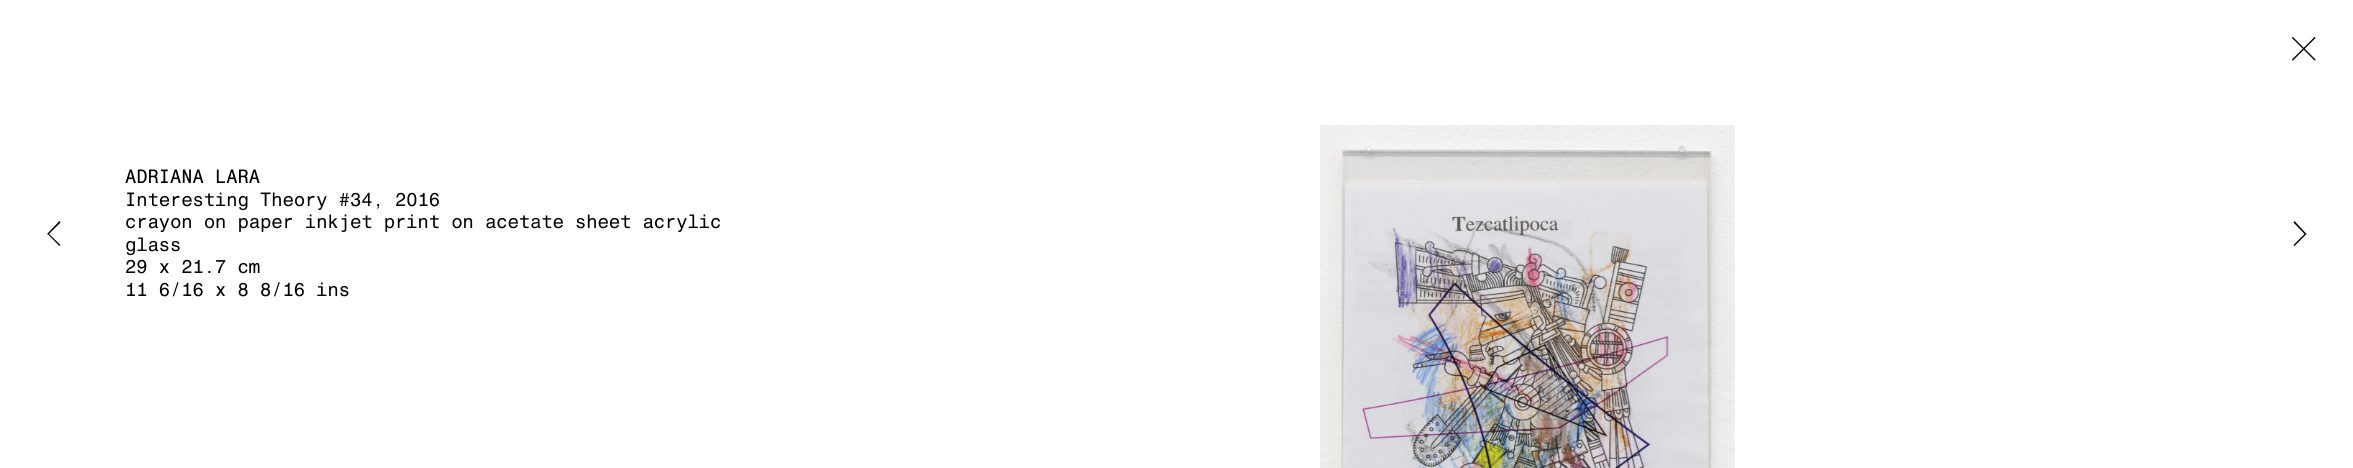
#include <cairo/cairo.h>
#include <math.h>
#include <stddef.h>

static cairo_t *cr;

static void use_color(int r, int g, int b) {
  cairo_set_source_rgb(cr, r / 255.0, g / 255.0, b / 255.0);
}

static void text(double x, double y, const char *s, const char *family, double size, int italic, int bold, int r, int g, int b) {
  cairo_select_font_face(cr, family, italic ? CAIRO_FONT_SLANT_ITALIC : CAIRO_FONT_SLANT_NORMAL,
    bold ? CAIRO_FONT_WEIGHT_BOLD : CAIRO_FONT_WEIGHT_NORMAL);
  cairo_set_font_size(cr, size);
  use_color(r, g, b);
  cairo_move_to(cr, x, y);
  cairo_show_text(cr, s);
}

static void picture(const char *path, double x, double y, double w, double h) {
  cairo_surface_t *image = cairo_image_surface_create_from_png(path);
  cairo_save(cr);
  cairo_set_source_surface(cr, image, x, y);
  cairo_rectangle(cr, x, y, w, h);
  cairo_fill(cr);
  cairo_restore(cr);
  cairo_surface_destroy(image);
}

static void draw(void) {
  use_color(255, 255, 255);
  cairo_paint(cr);
  picture("img_01.png", 2291, 36, 25, 25);
  picture("img_02.png", 1320, 125, 415, 343);
  use_color(0, 0, 0);
  cairo_new_path(cr);
  cairo_move_to(cr, 48, 234.5);
  cairo_line_to(cr, 59.5, 246);
  cairo_line_to(cr, 60.5, 245);
  cairo_line_to(cr, 49, 234);
  cairo_line_to(cr, 60.5, 222.5);
  cairo_line_to(cr, 59.5, 221);
  cairo_line_to(cr, 47, 234);
  cairo_close_path(cr);
  cairo_fill(cr);
  cairo_new_path(cr);
  cairo_move_to(cr, 2306.5, 234);
  cairo_line_to(cr, 2294.5, 221);
  cairo_line_to(cr, 2293.5, 222.5);
  cairo_line_to(cr, 2304.5, 234);
  cairo_line_to(cr, 2293.5, 245);
  cairo_line_to(cr, 2294.5, 246);
  cairo_close_path(cr);
  cairo_fill(cr);
  text(125, 183, "ADRIANA LARA", "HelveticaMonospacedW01", 18.75, 0, 0, 0, 0, 0);
  text(125, 206, "Interesting Theory #34, 2016", "HelveticaMonospacedW01", 18.75, 0, 0, 0, 0, 0);
  text(125, 228, "crayon on paper inkjet print on acetate sheet acrylic", "HelveticaMonospacedW01", 18.75, 0, 0, 0, 0, 0);
  text(125, 251, "glass", "HelveticaMonospacedW01", 18.75, 0, 0, 0, 0, 0);
  text(125, 273, "29 x 21.7 cm", "HelveticaMonospacedW01", 18.75, 0, 0, 0, 0, 0);
  text(125, 296, "11 6/16 x 8 8/16 ins", "HelveticaMonospacedW01", 18.75, 0, 0, 0, 0, 0);
}

int main(void) {
  cairo_surface_t *surface = cairo_image_surface_create(CAIRO_FORMAT_RGB24, 2353, 468);
  cr = cairo_create(surface);
  cairo_font_options_t *options = cairo_font_options_create();
  cairo_font_options_set_hint_metrics(options, CAIRO_HINT_METRICS_OFF);
  cairo_font_options_set_hint_style(options, CAIRO_HINT_STYLE_NONE);
  cairo_set_font_options(cr, options);
  cairo_set_miter_limit(cr, 4);
  draw();
  cairo_surface_write_to_png(surface, "out.png");
  cairo_font_options_destroy(options);
  cairo_destroy(cr);
  cairo_surface_destroy(surface);
  return 0;
}
